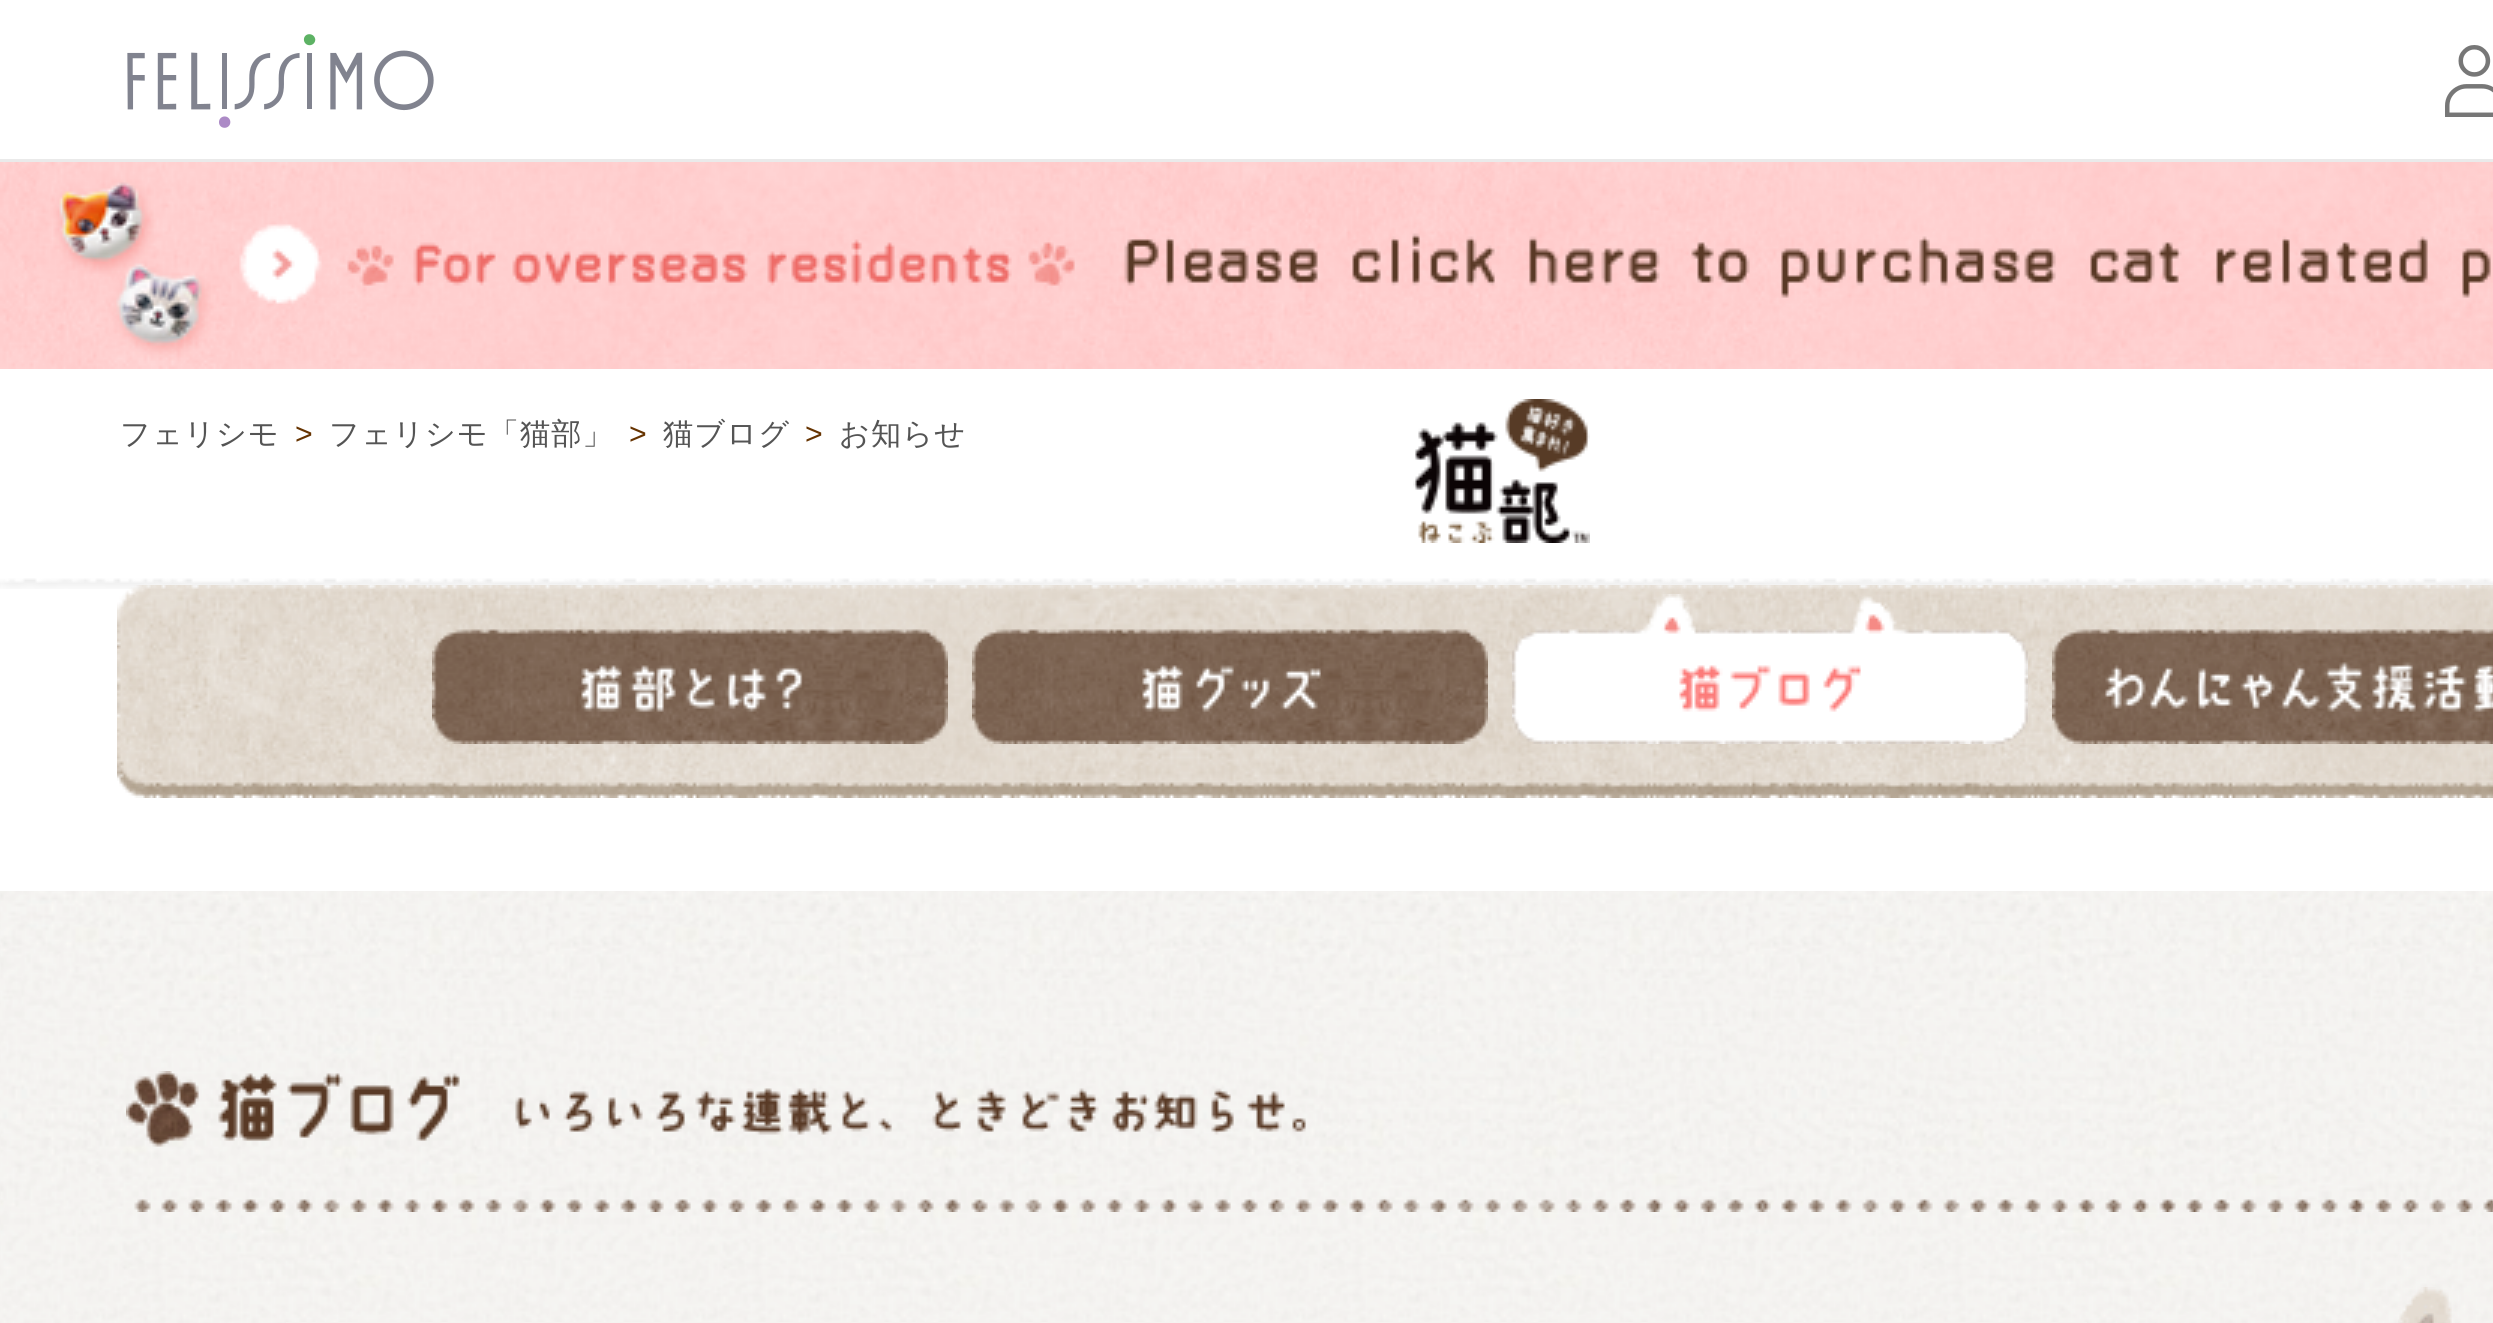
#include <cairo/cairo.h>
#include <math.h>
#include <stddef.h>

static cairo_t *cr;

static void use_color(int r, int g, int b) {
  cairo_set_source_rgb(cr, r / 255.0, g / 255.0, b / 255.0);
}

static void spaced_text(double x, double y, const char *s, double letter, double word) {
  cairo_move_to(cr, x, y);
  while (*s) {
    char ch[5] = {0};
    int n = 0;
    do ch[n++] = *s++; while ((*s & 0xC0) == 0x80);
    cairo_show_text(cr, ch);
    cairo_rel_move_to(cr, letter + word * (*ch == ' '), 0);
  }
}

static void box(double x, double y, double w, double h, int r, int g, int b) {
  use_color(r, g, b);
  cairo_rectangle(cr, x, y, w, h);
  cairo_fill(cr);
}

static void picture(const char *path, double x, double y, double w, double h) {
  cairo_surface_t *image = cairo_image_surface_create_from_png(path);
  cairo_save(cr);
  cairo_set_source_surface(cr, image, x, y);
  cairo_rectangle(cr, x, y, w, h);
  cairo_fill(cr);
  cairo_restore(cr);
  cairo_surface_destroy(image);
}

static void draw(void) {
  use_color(255, 255, 255);
  cairo_paint(cr);
  picture("img_01.png", 0, 891, 2493, 432);
  box(0, 159, 2493, 3, 234, 234, 234);
  picture("img_02.png", 127, 34, 307, 94);
  picture("img_03.png", 2445, 45, 48, 72);
  picture("img_04.png", 0, 162, 2493, 207);
  picture("img_05.png", 0, 578, 2493, 11);
  picture("img_06.png", 1413, 399, 177, 144);
  picture("img_07.png", 117, 585, 2376, 213);
  picture("img_08.png", 432, 629, 516, 115);
  picture("img_09.png", 972, 629, 516, 115);
  picture("img_10.png", 1512, 594, 516, 150);
  picture("img_11.png", 2052, 629, 441, 115);
  picture("img_12.png", 126, 1071, 2367, 141);
  box(286, 1322, 1801, 1, 245, 243, 240);
  picture("img_13.png", 2398, 1287, 54, 36);
  cairo_select_font_face(cr, "WenQuanYi Zen Hei Medium", CAIRO_FONT_SLANT_NORMAL, CAIRO_FONT_WEIGHT_NORMAL);
  cairo_set_font_size(cr, 30.25);
  use_color(84, 84, 84);
  spaced_text(120, 444, "フェリシモ", 1, 0);
  cairo_select_font_face(cr, "Liberation Sans", CAIRO_FONT_SLANT_NORMAL, CAIRO_FONT_WEIGHT_NORMAL);
  use_color(102, 51, 0);
  spaced_text(295, 444, ">", 1, 0);
  cairo_select_font_face(cr, "WenQuanYi Zen Hei Medium", CAIRO_FONT_SLANT_NORMAL, CAIRO_FONT_WEIGHT_NORMAL);
  use_color(84, 84, 84);
  spaced_text(329, 444, "フェリシモ「猫部」", 1, 0);
  cairo_select_font_face(cr, "Liberation Sans", CAIRO_FONT_SLANT_NORMAL, CAIRO_FONT_WEIGHT_NORMAL);
  use_color(102, 51, 0);
  spaced_text(629, 444, ">", 1, 0);
  cairo_select_font_face(cr, "WenQuanYi Zen Hei Medium", CAIRO_FONT_SLANT_NORMAL, CAIRO_FONT_WEIGHT_NORMAL);
  use_color(84, 84, 84);
  spaced_text(663, 444, "猫ブログ", 1, 0);
  cairo_select_font_face(cr, "Liberation Sans", CAIRO_FONT_SLANT_NORMAL, CAIRO_FONT_WEIGHT_NORMAL);
  use_color(102, 51, 0);
  spaced_text(805, 444, ">", 1, 0);
  cairo_select_font_face(cr, "WenQuanYi Zen Hei Medium", CAIRO_FONT_SLANT_NORMAL, CAIRO_FONT_WEIGHT_NORMAL);
  use_color(84, 84, 84);
  spaced_text(839, 444, "お知らせ", 1, 0);
}

int main(void) {
  cairo_surface_t *surface = cairo_image_surface_create(CAIRO_FORMAT_RGB24, 2493, 1323);
  cr = cairo_create(surface);
  cairo_font_options_t *options = cairo_font_options_create();
  cairo_font_options_set_hint_metrics(options, CAIRO_HINT_METRICS_OFF);
  cairo_font_options_set_hint_style(options, CAIRO_HINT_STYLE_NONE);
  cairo_set_font_options(cr, options);
  cairo_set_miter_limit(cr, 4);
  draw();
  cairo_surface_write_to_png(surface, "out.png");
  cairo_font_options_destroy(options);
  cairo_destroy(cr);
  cairo_surface_destroy(surface);
  return 0;
}
